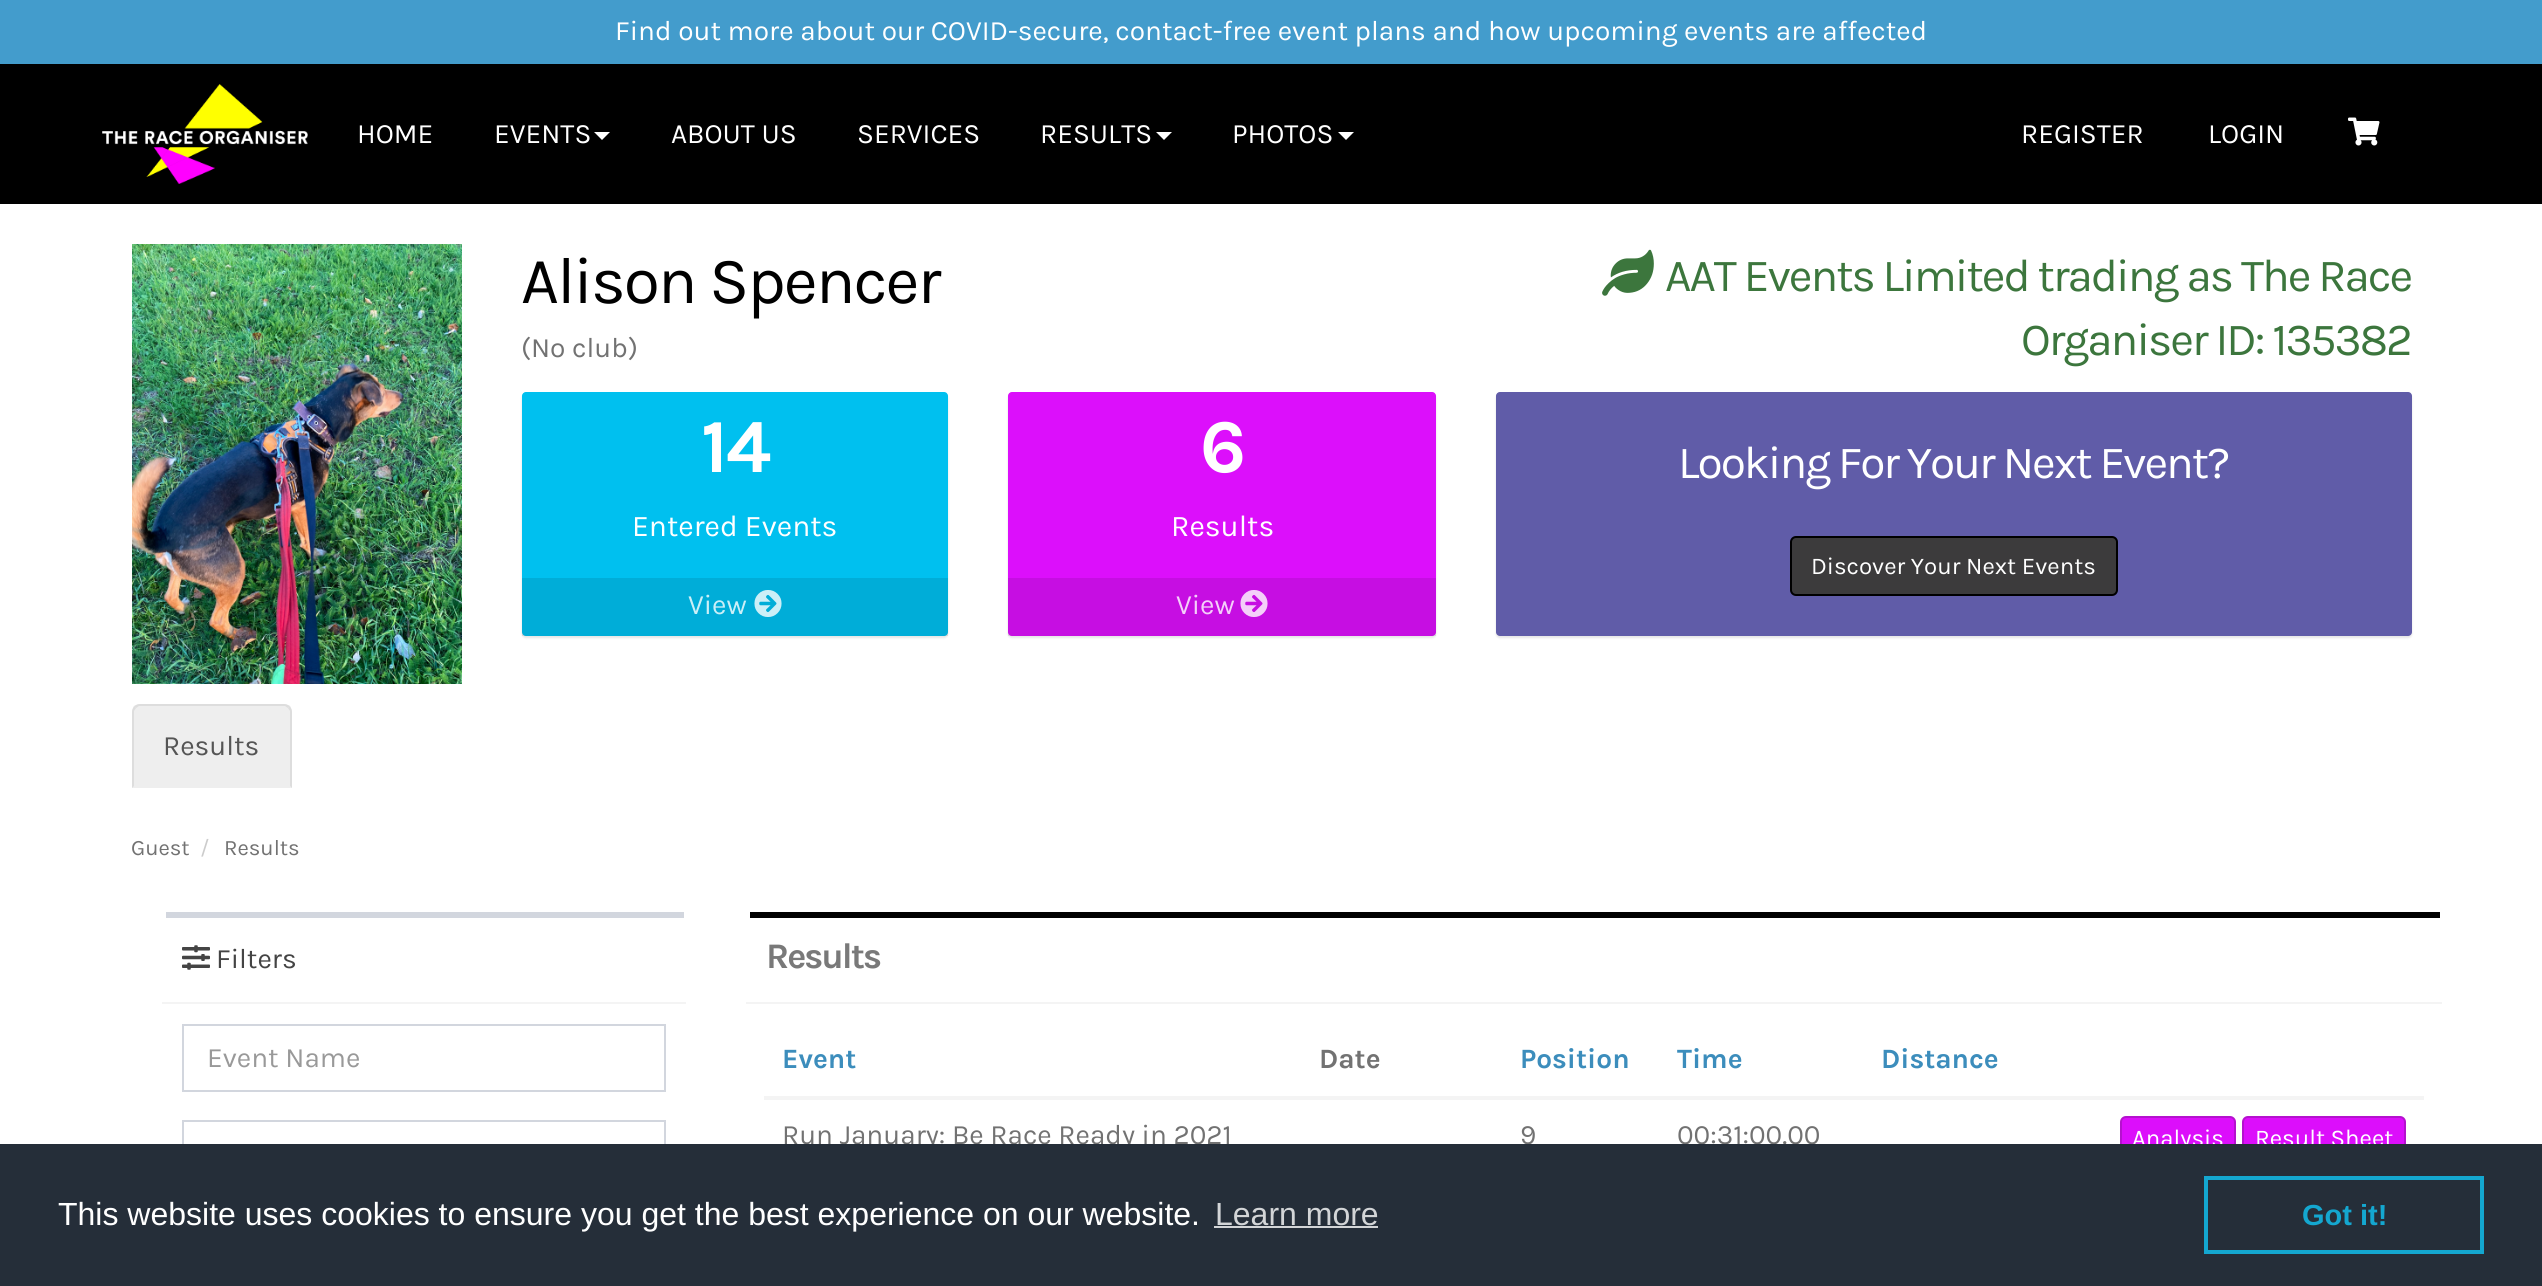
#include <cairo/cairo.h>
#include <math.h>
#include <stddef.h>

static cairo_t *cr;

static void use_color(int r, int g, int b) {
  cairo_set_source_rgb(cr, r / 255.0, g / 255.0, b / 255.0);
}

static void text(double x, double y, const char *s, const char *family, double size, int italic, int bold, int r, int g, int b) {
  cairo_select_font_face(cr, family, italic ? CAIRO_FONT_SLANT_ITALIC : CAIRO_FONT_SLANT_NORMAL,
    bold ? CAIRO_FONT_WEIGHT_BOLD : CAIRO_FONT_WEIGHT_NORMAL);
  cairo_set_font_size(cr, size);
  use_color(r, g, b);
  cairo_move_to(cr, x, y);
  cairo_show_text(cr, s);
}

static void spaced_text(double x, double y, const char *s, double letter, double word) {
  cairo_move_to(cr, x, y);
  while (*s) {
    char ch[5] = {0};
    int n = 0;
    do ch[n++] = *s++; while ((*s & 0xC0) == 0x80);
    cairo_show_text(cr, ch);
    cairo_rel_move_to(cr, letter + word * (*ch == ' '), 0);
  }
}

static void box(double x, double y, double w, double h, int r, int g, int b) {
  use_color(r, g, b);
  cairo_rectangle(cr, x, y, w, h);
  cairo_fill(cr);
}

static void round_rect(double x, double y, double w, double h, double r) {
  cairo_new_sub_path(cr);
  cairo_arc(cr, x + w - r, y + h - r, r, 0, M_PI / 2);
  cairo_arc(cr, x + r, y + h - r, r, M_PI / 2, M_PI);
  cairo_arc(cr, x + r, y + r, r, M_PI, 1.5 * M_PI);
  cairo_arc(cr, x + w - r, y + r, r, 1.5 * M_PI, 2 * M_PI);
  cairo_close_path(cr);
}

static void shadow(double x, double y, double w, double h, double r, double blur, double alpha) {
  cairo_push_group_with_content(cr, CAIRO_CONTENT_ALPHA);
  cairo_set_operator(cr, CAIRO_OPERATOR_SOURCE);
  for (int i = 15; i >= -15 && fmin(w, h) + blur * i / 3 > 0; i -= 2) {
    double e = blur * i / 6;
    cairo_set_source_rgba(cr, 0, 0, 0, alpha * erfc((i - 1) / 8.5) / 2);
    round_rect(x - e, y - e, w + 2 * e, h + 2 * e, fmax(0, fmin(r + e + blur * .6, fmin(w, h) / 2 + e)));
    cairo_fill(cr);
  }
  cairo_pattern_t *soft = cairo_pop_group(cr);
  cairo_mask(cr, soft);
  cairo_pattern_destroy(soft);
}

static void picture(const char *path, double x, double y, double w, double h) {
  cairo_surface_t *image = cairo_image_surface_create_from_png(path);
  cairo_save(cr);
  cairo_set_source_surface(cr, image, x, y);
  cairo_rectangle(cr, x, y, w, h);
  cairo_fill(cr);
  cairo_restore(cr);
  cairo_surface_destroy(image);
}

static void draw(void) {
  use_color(255, 255, 255);
  cairo_paint(cr);
  box(0, 0, 2542, 64, 67, 156, 204);
  box(0, 64, 2542, 140, 0, 0, 0);
  picture("img_01.png", 102, 84, 206, 100);
  use_color(255, 255, 255);
  cairo_new_path(cr);
  cairo_move_to(cr, 594, 132);
  cairo_line_to(cr, 610, 132);
  cairo_line_to(cr, 602, 140);
  cairo_close_path(cr);
  cairo_fill(cr);
  cairo_new_path(cr);
  cairo_move_to(cr, 1156, 132);
  cairo_line_to(cr, 1172, 132);
  cairo_line_to(cr, 1164, 140);
  cairo_close_path(cr);
  cairo_fill(cr);
  cairo_new_path(cr);
  cairo_move_to(cr, 1338, 132);
  cairo_line_to(cr, 1354, 132);
  cairo_line_to(cr, 1346, 140);
  cairo_close_path(cr);
  cairo_fill(cr);
  picture("img_02.png", 2348, 117, 32, 29);
  picture("img_03.png", 132, 244, 330, 440);
  picture("img_04.png", 1602, 249, 52, 47);
  use_color(0, 0, 0);
  shadow(522, 394, 426, 244, 4, 1, 0.1);
  use_color(0, 192, 239);
  round_rect(522, 392, 426, 244, 4);
  cairo_fill(cr);
  cairo_set_source_rgba(cr, 0, 0, 0, 0.1);
  cairo_rectangle(cr, 522, 578, 426, 58);
  cairo_fill(cr);
  picture("img_05.png", 754, 590, 28, 27);
  use_color(0, 0, 0);
  shadow(1008, 394, 428, 244, 4, 1, 0.1);
  use_color(220, 15, 251);
  round_rect(1008, 392, 428, 244, 4);
  cairo_fill(cr);
  cairo_set_source_rgba(cr, 0, 0, 0, 0.1);
  cairo_rectangle(cr, 1008, 578, 428, 58);
  cairo_fill(cr);
  picture("img_06.png", 1240, 590, 28, 27);
  use_color(0, 0, 0);
  shadow(1496, 394, 916, 244, 4, 1, 0.1);
  use_color(96, 92, 168);
  round_rect(1496, 392, 916, 244, 4);
  cairo_fill(cr);
  use_color(60, 59, 60);
  round_rect(1791, 537, 326, 58, 5);
  cairo_fill_preserve(cr);
  use_color(0, 0, 0);
  cairo_stroke(cr);
  use_color(238, 238, 238);
  cairo_new_path(cr);
  cairo_move_to(cr, 140, 704);
  cairo_line_to(cr, 284, 704);
  cairo_curve_to(cr, 288.5, 704, 292, 707.5, 292, 712);
  cairo_line_to(cr, 292, 788);
  cairo_line_to(cr, 132, 788);
  cairo_line_to(cr, 132, 712);
  cairo_curve_to(cr, 132, 707.5, 135.5, 704, 140, 704);
  cairo_close_path(cr);
  cairo_fill(cr);
  use_color(221, 221, 221);
  cairo_new_path(cr);
  cairo_move_to(cr, 140, 704);
  cairo_curve_to(cr, 138, 704, 136, 705, 134, 706);
  cairo_line_to(cr, 136, 708);
  cairo_line_to(cr, 139, 706);
  cairo_line_to(cr, 285, 706);
  cairo_line_to(cr, 288, 708);
  cairo_line_to(cr, 290, 706);
  cairo_curve_to(cr, 288, 705, 286, 704, 284, 704);
  cairo_close_path(cr);
  cairo_fill(cr);
  cairo_new_path(cr);
  cairo_move_to(cr, 292, 788);
  cairo_line_to(cr, 292, 712);
  cairo_curve_to(cr, 292, 710, 291, 708, 290, 706);
  cairo_line_to(cr, 288, 708);
  cairo_line_to(cr, 290, 711);
  cairo_line_to(cr, 290, 786);
  cairo_close_path(cr);
  cairo_fill(cr);
  cairo_new_path(cr);
  cairo_move_to(cr, 132, 788);
  cairo_line_to(cr, 134, 786);
  cairo_line_to(cr, 134, 711);
  cairo_line_to(cr, 136, 708);
  cairo_line_to(cr, 134, 706);
  cairo_curve_to(cr, 133, 708, 132, 710, 132, 712);
  cairo_close_path(cr);
  cairo_fill(cr);
  box(166, 912, 518, 6, 210, 214, 222);
  box(162, 1002, 524, 2, 244, 244, 244);
  picture("img_07.png", 182, 945, 28, 25);
  cairo_rectangle(cr, 183, 1025, 482, 66);
  use_color(210, 214, 222);
  cairo_stroke(cr);
  cairo_rectangle(cr, 183, 1121, 482, 66);
  cairo_stroke(cr);
  box(750, 912, 1690, 6, 0, 0, 0);
  box(746, 1002, 1696, 2, 244, 244, 244);
  box(764, 1096, 1660, 4, 244, 244, 244);
  use_color(220, 14, 251);
  round_rect(2121, 1117, 114, 42, 5);
  cairo_fill_preserve(cr);
  use_color(181, 17, 206);
  cairo_stroke(cr);
  use_color(220, 14, 251);
  round_rect(2243, 1117, 162, 42, 5);
  cairo_fill_preserve(cr);
  use_color(181, 17, 206);
  cairo_stroke(cr);
  text(615, 40, "Find out more about our COVID-secure, contact-free event plans and how upcoming events are affected", "Karla", 28, 0, 0, 255, 255, 255);
  text(357, 143, "HOME", "Karla", 28, 0, 0, 255, 255, 255);
  text(494, 143, "EVENTS", "Karla", 28, 0, 0, 255, 255, 255);
  text(671, 143, "ABOUT US", "Karla", 28, 0, 0, 255, 255, 255);
  text(857, 143, "SERVICES", "Karla", 28, 0, 0, 255, 255, 255);
  text(1040, 143, "RESULTS", "Karla", 28, 0, 0, 255, 255, 255);
  text(1232, 143, "PHOTOS", "Karla", 28, 0, 0, 255, 255, 255);
  text(2021, 143, "REGISTER", "Karla", 28, 0, 0, 255, 255, 255);
  text(2208, 143, "LOGIN", "Karla", 28, 0, 0, 255, 255, 255);
  cairo_set_font_size(cr, 66);
  use_color(0, 0, 0);
  spaced_text(521, 303, "Alison Spencer", -2, 0);
  text(521, 357, "(No club)", "Karla", 28, 0, 0, 114, 114, 114);
  cairo_set_font_size(cr, 46);
  use_color(60, 118, 61);
  spaced_text(1665, 291, "AAT Events Limited trading as The Race", -2, 0);
  spaced_text(2021, 355, "Organiser ID: 135382", -2, 0);
  cairo_select_font_face(cr, "Karla", CAIRO_FONT_SLANT_NORMAL, CAIRO_FONT_WEIGHT_BOLD);
  cairo_set_font_size(cr, 76);
  use_color(255, 255, 255);
  spaced_text(701, 472, "14", -2, 0);
  text(632, 536, "Entered Events", "Karla", 30, 0, 0, 255, 255, 255);
  text(688, 614, "View", "Karla", 28, 0, 0, 204, 239, 247);
  cairo_select_font_face(cr, "Karla", CAIRO_FONT_SLANT_NORMAL, CAIRO_FONT_WEIGHT_BOLD);
  cairo_set_font_size(cr, 76);
  use_color(255, 255, 255);
  spaced_text(1200, 472, "6", -2, 0);
  text(1171, 536, "Results", "Karla", 30, 0, 0, 255, 255, 255);
  text(1176, 614, "View", "Karla", 28, 0, 0, 244, 207, 249);
  cairo_set_font_size(cr, 46);
  use_color(255, 255, 255);
  spaced_text(1678, 478, "Looking For Your Next Event?", -2, 0);
  text(1811, 574, "Discover Your Next Events", "Karla", 24, 0, 0, 255, 255, 255);
  text(163, 755, "Results", "Karla", 28, 0, 0, 85, 85, 85);
  text(131, 855, "Guest", "Karla", 22, 0, 0, 114, 114, 114);
  text(200, 855, "/", "Karla", 22, 0, 0, 204, 204, 204);
  text(224, 855, "Results", "Karla", 22, 0, 0, 114, 114, 114);
  text(216, 968, "Filters", "Karla", 28, 0, 0, 68, 68, 68);
  text(207, 1067, "Event Name", "Karla", 28, 0, 0, 153, 153, 153);
  cairo_select_font_face(cr, "Karla", CAIRO_FONT_SLANT_NORMAL, CAIRO_FONT_WEIGHT_BOLD);
  cairo_set_font_size(cr, 36);
  use_color(121, 121, 121);
  spaced_text(766, 968, "Results", -2, 0);
  text(782, 1068, "Event", "Karla", 28, 0, 1, 60, 141, 188);
  text(1319, 1068, "Date", "Karla", 28, 0, 1, 114, 114, 114);
  text(1520, 1068, "Position", "Karla", 28, 0, 1, 60, 141, 188);
  text(1677, 1068, "Time", "Karla", 28, 0, 1, 60, 141, 188);
  text(1881, 1068, "Distance", "Karla", 28, 0, 1, 60, 141, 188);
  text(782, 1144, "Run January: Be Race Ready in 2021", "Karla", 28, 0, 0, 114, 114, 114);
  text(1520, 1144, "9", "Karla", 28, 0, 0, 114, 114, 114);
  text(1677, 1144, "00:31:00.00", "Karla", 28, 0, 0, 114, 114, 114);
  text(2132, 1146, "Analysis", "Karla", 24, 0, 0, 255, 255, 255);
  text(2255, 1146, "Result Sheet", "Karla", 24, 0, 0, 255, 255, 255);
  box(0, 1144, 2542, 142, 37, 46, 57);
  text(58, 1225, "This website uses cookies to ensure you get the best experience on our website.", "Liberation Sans", 32, 0, 0, 255, 255, 255);
  text(1215, 1225, "Learn more", "Liberation Sans", 32, 0, 0, 211, 213, 215);
  box(1214, 1226, 164, 2, 211, 213, 215);
  cairo_rectangle(cr, 2206, 1178, 276, 74);
  use_color(20, 167, 208);
  cairo_set_line_width(cr, 4);
  cairo_stroke(cr);
  text(2302, 1225, "Got it!", "Liberation Sans", 29, 0, 1, 20, 167, 208);
}

int main(void) {
  cairo_surface_t *surface = cairo_image_surface_create(CAIRO_FORMAT_RGB24, 2542, 1286);
  cr = cairo_create(surface);
  cairo_font_options_t *options = cairo_font_options_create();
  cairo_font_options_set_hint_metrics(options, CAIRO_HINT_METRICS_OFF);
  cairo_font_options_set_hint_style(options, CAIRO_HINT_STYLE_NONE);
  cairo_set_font_options(cr, options);
  cairo_set_miter_limit(cr, 4);
  draw();
  cairo_surface_write_to_png(surface, "out.png");
  cairo_font_options_destroy(options);
  cairo_destroy(cr);
  cairo_surface_destroy(surface);
  return 0;
}
